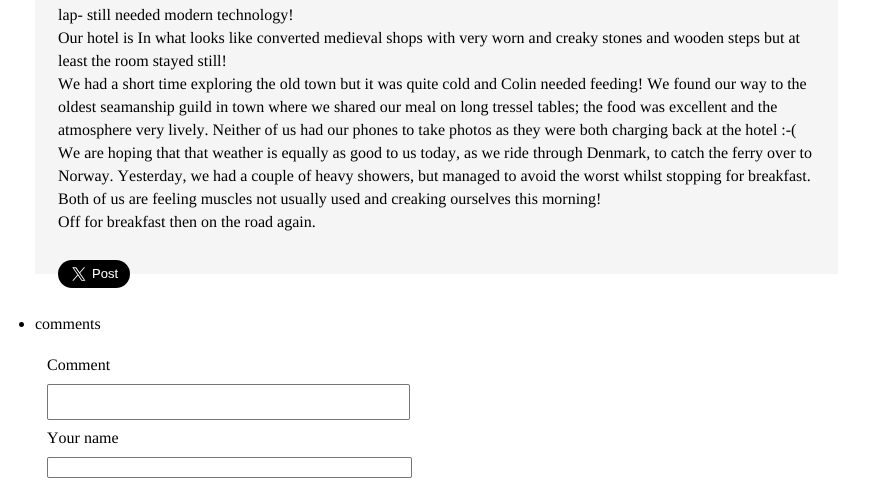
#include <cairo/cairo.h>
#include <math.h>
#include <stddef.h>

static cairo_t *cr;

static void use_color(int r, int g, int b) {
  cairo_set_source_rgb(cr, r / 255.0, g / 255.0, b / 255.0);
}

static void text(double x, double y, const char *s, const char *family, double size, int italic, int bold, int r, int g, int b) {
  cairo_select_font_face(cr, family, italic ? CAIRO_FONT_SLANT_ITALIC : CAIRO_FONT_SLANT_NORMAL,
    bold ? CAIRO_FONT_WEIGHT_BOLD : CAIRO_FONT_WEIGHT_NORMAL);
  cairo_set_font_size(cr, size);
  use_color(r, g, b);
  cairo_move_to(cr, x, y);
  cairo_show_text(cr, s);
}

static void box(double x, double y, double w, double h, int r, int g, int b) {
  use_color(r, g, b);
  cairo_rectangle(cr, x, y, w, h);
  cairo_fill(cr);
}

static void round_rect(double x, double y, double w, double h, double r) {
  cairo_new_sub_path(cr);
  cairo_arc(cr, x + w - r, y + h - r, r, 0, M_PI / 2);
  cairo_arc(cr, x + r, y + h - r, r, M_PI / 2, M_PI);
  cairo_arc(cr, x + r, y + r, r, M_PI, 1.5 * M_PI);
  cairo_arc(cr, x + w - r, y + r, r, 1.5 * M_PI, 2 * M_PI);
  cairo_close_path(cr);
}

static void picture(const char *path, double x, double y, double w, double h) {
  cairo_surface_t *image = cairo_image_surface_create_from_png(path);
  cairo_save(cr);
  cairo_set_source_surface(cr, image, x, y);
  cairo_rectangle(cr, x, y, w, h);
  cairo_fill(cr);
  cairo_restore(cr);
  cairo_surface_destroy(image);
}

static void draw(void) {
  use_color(255, 255, 255);
  cairo_paint(cr);
  box(35, 0, 803, 274, 245, 245, 245);
  picture("img_01.png", 58, 260, 72, 28);
  use_color(0, 0, 0);
  cairo_arc(cr, 21.5, 324.5, 2.5, 0, 2 * M_PI);
  cairo_fill(cr);
  round_rect(47.5, 384.5, 362, 35, 1.5);
  use_color(118, 118, 118);
  cairo_set_line_width(cr, 1);
  cairo_stroke(cr);
  round_rect(47.5, 457.5, 364, 20, 1.5);
  cairo_stroke(cr);
  text(58, 20, "lap- still needed modern technology!", "Liberation Serif", 16, 0, 0, 0, 0, 0);
  text(58, 43, "Our hotel is In what looks like converted medieval shops with very worn and creaky stones and wooden steps but at", "Liberation Serif", 16, 0, 0, 0, 0, 0);
  text(58, 66, "least the room stayed still!", "Liberation Serif", 16, 0, 0, 0, 0, 0);
  text(58, 89, "We had a short time exploring the old town but it was quite cold and Colin needed feeding! We found our way to the", "Liberation Serif", 16, 0, 0, 0, 0, 0);
  text(58, 112, "oldest seamanship guild in town where we shared our meal on long tressel tables; the food was excellent and the", "Liberation Serif", 16, 0, 0, 0, 0, 0);
  text(58, 135, "atmosphere very lively. Neither of us had our phones to take photos as they were both charging back at the hotel :-(", "Liberation Serif", 16, 0, 0, 0, 0, 0);
  text(58, 158, "We are hoping that that weather is equally as good to us today, as we ride through Denmark, to catch the ferry over to", "Liberation Serif", 16, 0, 0, 0, 0, 0);
  text(58, 181, "Norway. Yesterday, we had a couple of heavy showers, but managed to avoid the worst whilst stopping for breakfast.", "Liberation Serif", 16, 0, 0, 0, 0, 0);
  text(58, 204, "Both of us are feeling muscles not usually used and creaking ourselves this morning!", "Liberation Serif", 16, 0, 0, 0, 0, 0);
  text(58, 227, "Off for breakfast then on the road again.", "Liberation Serif", 16, 0, 0, 0, 0, 0);
  text(35, 329, "comments", "Liberation Serif", 16, 0, 0, 0, 0, 0);
  text(47, 370, "Comment", "Liberation Serif", 16, 0, 0, 0, 0, 0);
  text(47, 443, "Your name", "Liberation Serif", 16, 0, 0, 0, 0, 0);
}

int main(void) {
  cairo_surface_t *surface = cairo_image_surface_create(CAIRO_FORMAT_RGB24, 874, 483);
  cr = cairo_create(surface);
  cairo_font_options_t *options = cairo_font_options_create();
  cairo_font_options_set_hint_metrics(options, CAIRO_HINT_METRICS_OFF);
  cairo_font_options_set_hint_style(options, CAIRO_HINT_STYLE_NONE);
  cairo_set_font_options(cr, options);
  cairo_set_miter_limit(cr, 4);
  draw();
  cairo_surface_write_to_png(surface, "out.png");
  cairo_font_options_destroy(options);
  cairo_destroy(cr);
  cairo_surface_destroy(surface);
  return 0;
}
